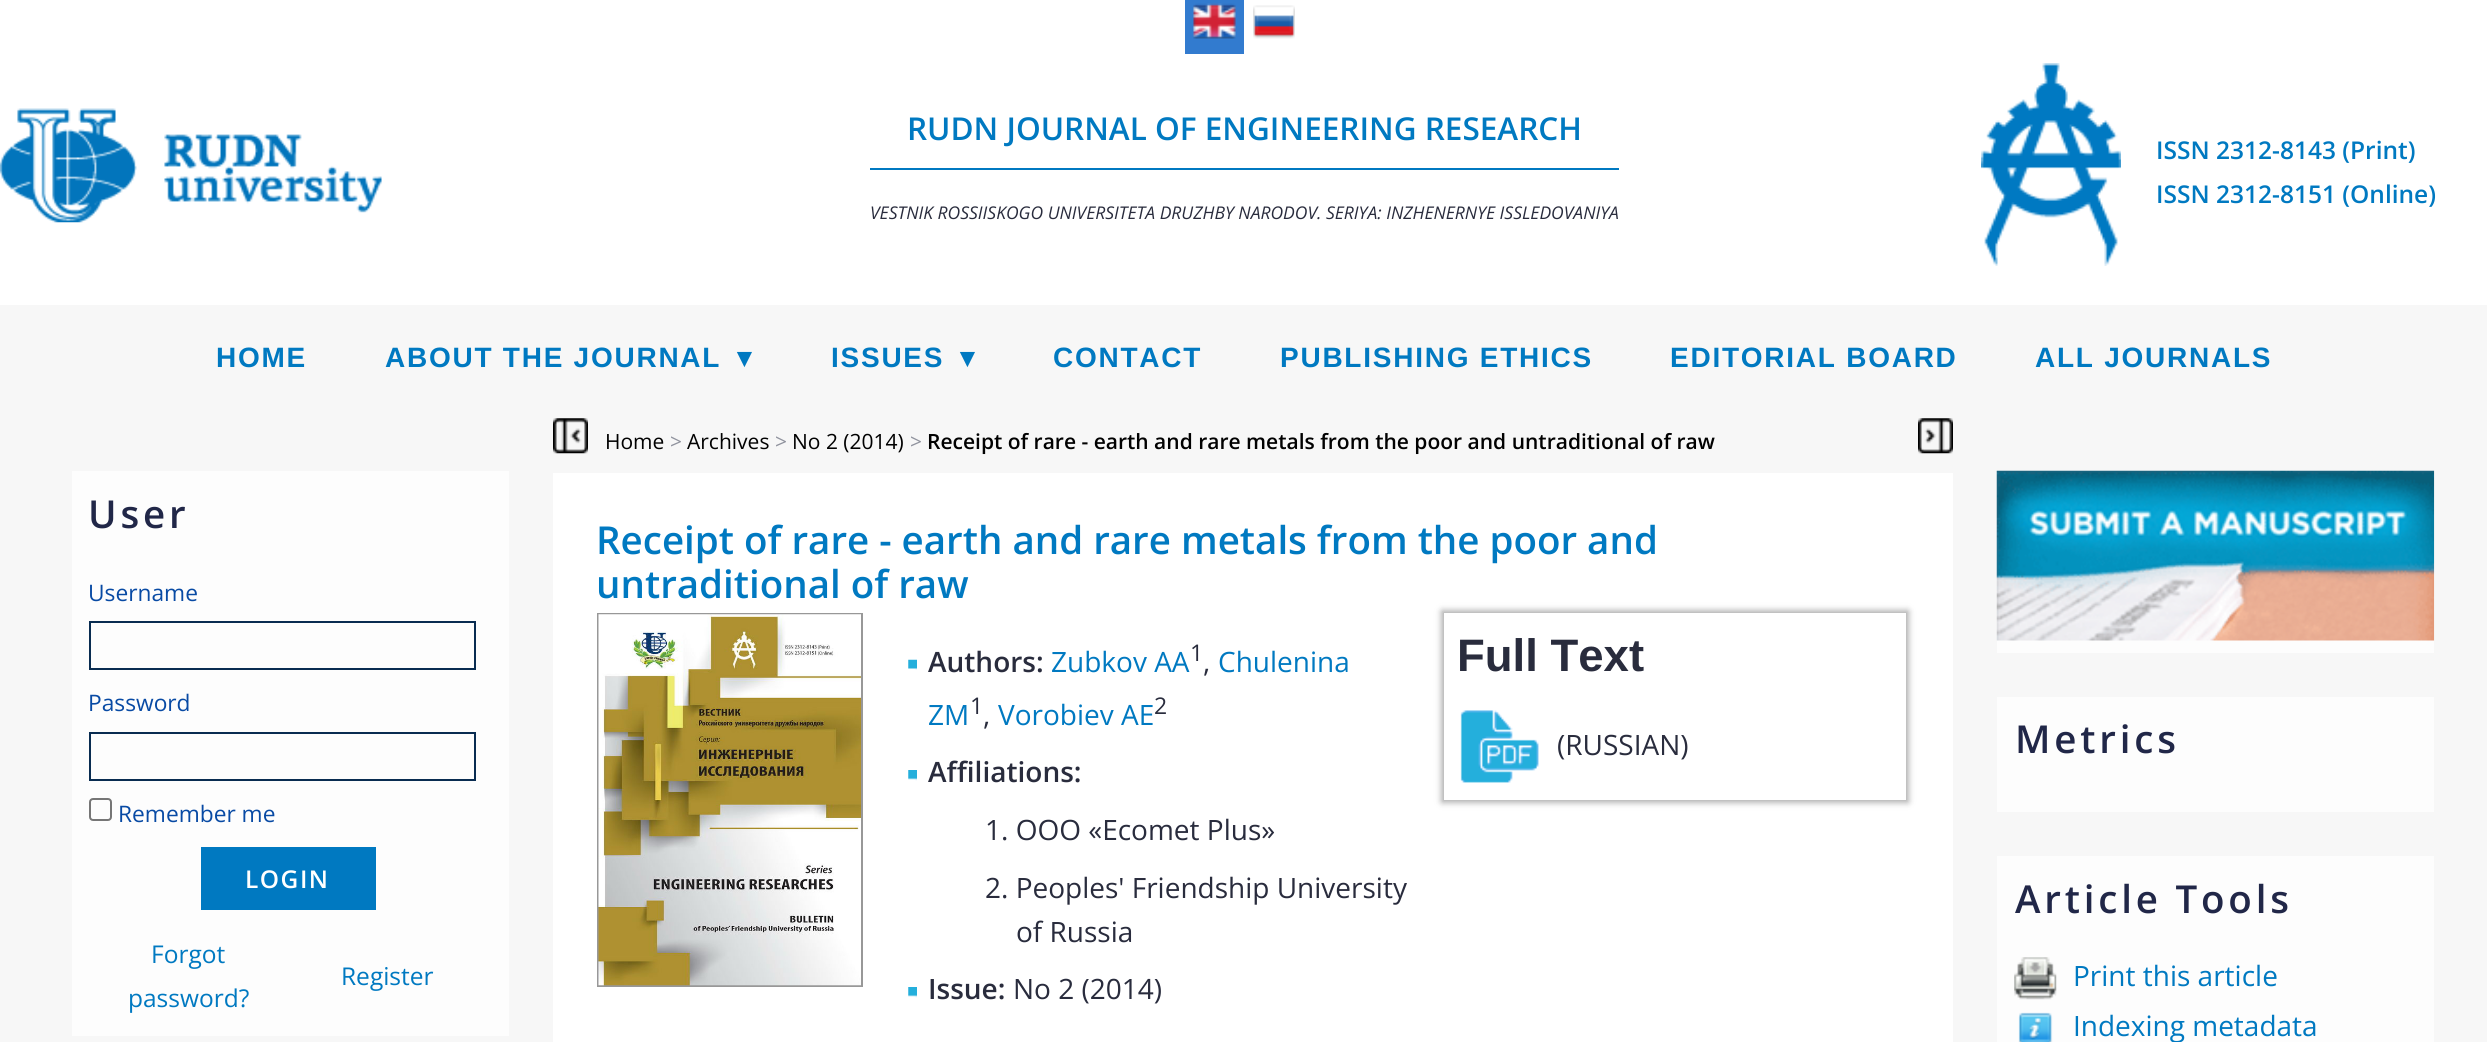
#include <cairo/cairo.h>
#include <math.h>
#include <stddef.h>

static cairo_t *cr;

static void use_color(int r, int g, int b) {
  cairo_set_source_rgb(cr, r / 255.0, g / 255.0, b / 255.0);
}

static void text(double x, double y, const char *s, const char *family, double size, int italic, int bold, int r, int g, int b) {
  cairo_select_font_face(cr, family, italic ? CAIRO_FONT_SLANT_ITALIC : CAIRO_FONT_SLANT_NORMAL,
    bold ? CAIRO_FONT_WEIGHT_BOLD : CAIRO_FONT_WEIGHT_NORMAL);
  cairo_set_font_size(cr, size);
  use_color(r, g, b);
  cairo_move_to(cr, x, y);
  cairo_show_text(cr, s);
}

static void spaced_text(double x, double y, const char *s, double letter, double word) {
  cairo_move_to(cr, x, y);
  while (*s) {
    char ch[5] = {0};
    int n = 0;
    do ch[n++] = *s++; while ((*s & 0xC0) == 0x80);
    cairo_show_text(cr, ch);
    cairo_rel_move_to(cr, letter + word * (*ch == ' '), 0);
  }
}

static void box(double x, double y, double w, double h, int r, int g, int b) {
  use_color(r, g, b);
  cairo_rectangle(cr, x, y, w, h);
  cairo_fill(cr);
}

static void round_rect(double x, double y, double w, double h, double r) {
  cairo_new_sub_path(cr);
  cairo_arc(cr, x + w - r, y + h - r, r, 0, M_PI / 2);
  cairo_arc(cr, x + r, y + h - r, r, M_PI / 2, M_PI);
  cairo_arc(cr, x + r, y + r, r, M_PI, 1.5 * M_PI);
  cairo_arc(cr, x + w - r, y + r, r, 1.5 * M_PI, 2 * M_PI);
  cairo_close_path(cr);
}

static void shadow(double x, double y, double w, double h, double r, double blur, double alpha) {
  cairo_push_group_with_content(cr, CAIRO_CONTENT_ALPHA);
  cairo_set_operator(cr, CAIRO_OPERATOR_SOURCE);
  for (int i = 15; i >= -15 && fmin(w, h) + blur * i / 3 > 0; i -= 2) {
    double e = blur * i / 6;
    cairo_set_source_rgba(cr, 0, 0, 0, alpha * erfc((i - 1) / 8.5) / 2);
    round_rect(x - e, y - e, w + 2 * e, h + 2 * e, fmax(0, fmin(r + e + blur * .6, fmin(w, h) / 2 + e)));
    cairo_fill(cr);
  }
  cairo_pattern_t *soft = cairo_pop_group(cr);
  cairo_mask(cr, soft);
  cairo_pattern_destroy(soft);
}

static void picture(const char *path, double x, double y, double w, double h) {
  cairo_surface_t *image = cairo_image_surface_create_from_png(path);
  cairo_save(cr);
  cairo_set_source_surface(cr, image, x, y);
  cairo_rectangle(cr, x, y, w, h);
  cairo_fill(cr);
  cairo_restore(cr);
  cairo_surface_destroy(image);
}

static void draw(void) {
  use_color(247, 247, 247);
  cairo_paint(cr);
  box(0, 0, 2487, 305, 255, 255, 255);
  box(1185, 0, 59, 54, 50, 123, 207);
  picture("img_01.png", 1193, 3, 43, 36);
  picture("img_02.png", 1253, 5, 42, 34);
  picture("img_03.png", 0, 108, 382, 115);
  box(870, 168, 749, 2, 0, 121, 193);
  picture("img_04.png", 1981, 63, 140, 203);
  picture("img_05.png", 553, 418, 35, 36);
  picture("img_06.png", 1918, 418, 35, 36);
  box(553, 473, 1400, 569, 255, 255, 255);
  cairo_rectangle(cr, 598, 614, 264, 372);
  use_color(152, 152, 152);
  cairo_stroke(cr);
  picture("img_07.png", 598, 614, 263, 372);
  picture("img_08.png", 908, 659, 9, 11);
  picture("img_09.png", 908, 770, 9, 11);
  picture("img_09.png", 908, 987, 9, 11);
  use_color(66, 66, 66);
  shadow(1442, 611, 466, 191, 0, 3.5, 0.5);
  box(1444, 613, 462, 187, 255, 255, 255);
  picture("img_10.png", 1460, 710, 79, 73);
  box(72, 471, 437, 565, 253, 253, 253);
  cairo_rectangle(cr, 90, 622, 385, 47);
  use_color(9, 44, 81);
  cairo_stroke(cr);
  cairo_rectangle(cr, 90, 733, 385, 47);
  cairo_stroke(cr);
  round_rect(90, 799, 21, 21, 3);
  use_color(118, 118, 118);
  cairo_stroke(cr);
  box(201, 847, 175, 63, 0, 121, 193);
  box(1997, 640, 437, 13, 253, 253, 253);
  picture("img_11.png", 1996, 470, 439, 171);
  box(1997, 697, 437, 115, 253, 253, 253);
  box(1997, 856, 437, 186, 253, 253, 253);
  picture("img_12.png", 2014, 957, 43, 43);
  picture("img_13.png", 2018, 1012, 35, 30);
  text(907, 140, "RUDN JOURNAL OF ENGINEERING RESEARCH", "Open Sans SemiBold", 31.5, 0, 0, 0, 121, 193);
  text(870, 219, "VESTNIK ROSSIISKOGO UNIVERSITETA DRUZHBY NARODOV. SERIYA: INZHENERNYE ISSLEDOVANIYA", "Open Sans", 17.5, 1, 0, 41, 44, 61);
  text(2156, 159, "ISSN 2312-8143 (Print)", "Open Sans SemiBold", 24.5, 0, 0, 0, 121, 193);
  text(2156, 203, "ISSN 2312-8151 (Online)", "Open Sans SemiBold", 24.5, 0, 0, 0, 121, 193);
  cairo_select_font_face(cr, "Liberation Sans", CAIRO_FONT_SLANT_NORMAL, CAIRO_FONT_WEIGHT_BOLD);
  cairo_set_font_size(cr, 28);
  spaced_text(216, 367, "HOME", 1.75, 0);
  spaced_text(385, 367, "ABOUT THE JOURNAL", 1.75, 0);
  cairo_select_font_face(cr, "DejaVu Sans", CAIRO_FONT_SLANT_NORMAL, CAIRO_FONT_WEIGHT_BOLD);
  spaced_text(737, 367, "▾", 1.75, 0);
  cairo_select_font_face(cr, "Liberation Sans", CAIRO_FONT_SLANT_NORMAL, CAIRO_FONT_WEIGHT_BOLD);
  spaced_text(831, 367, "ISSUES", 1.75, 0);
  cairo_select_font_face(cr, "DejaVu Sans", CAIRO_FONT_SLANT_NORMAL, CAIRO_FONT_WEIGHT_BOLD);
  spaced_text(960, 367, "▾", 1.75, 0);
  cairo_select_font_face(cr, "Liberation Sans", CAIRO_FONT_SLANT_NORMAL, CAIRO_FONT_WEIGHT_BOLD);
  spaced_text(1053, 367, "CONTACT", 1.75, 0);
  spaced_text(1280, 367, "PUBLISHING ETHICS", 1.75, 0);
  spaced_text(1670, 367, "EDITORIAL BOARD", 1.75, 0);
  spaced_text(2035, 367, "ALL JOURNALS", 1.75, 0);
  text(605, 449, "Home", "Open Sans", 21, 0, 0, 1, 1, 1);
  text(670, 449, ">", "Open Sans", 21, 0, 0, 144, 147, 158);
  text(687, 449, "Archives", "Open Sans", 21, 0, 0, 1, 1, 1);
  text(775, 449, ">", "Open Sans", 21, 0, 0, 144, 147, 158);
  text(792, 449, "No 2 (2014)", "Open Sans", 21, 0, 0, 1, 1, 1);
  text(910, 449, ">", "Open Sans", 21, 0, 0, 144, 147, 158);
  text(927, 449, "Receipt of rare - earth and rare metals from the poor and untraditional of raw", "Open Sans SemiBold", 21, 0, 0, 1, 1, 1);
  text(596, 554, "Receipt of rare - earth and rare metals from the poor and", "Open Sans SemiBold", 38.5, 0, 0, 0, 121, 193);
  text(596, 598, "untraditional of raw", "Open Sans SemiBold", 38.5, 0, 0, 0, 121, 193);
  text(928, 672, "Authors:", "Open Sans SemiBold", 28, 0, 0, 41, 44, 61);
  text(1051, 672, "Zubkov AA", "Open Sans", 28, 0, 0, 0, 121, 193);
  text(1190, 661, "1", "Open Sans", 23, 0, 0, 41, 44, 61);
  text(1203, 672, ",", "Open Sans", 28, 0, 0, 41, 44, 61);
  text(1218, 672, "Chulenina", "Open Sans", 28, 0, 0, 0, 121, 193);
  text(928, 725, "ZM", "Open Sans", 28, 0, 0, 0, 121, 193);
  text(970, 714, "1", "Open Sans", 23, 0, 0, 41, 44, 61);
  text(983, 725, ",", "Open Sans", 28, 0, 0, 41, 44, 61);
  text(998, 725, "Vorobiev AE", "Open Sans", 28, 0, 0, 0, 121, 193);
  text(1154, 714, "2", "Open Sans", 23, 0, 0, 41, 44, 61);
  text(928, 782, "Affiliations:", "Open Sans SemiBold", 28, 0, 0, 41, 44, 61);
  text(985, 840, "1. OOO «Ecomet Plus»", "Open Sans", 28, 0, 0, 41, 44, 61);
  text(985, 898, "2. Peoples' Friendship University", "Open Sans", 28, 0, 0, 41, 44, 61);
  text(1016, 942, "of Russia", "Open Sans", 28, 0, 0, 41, 44, 61);
  text(928, 999, "Issue:", "Open Sans SemiBold", 28, 0, 0, 41, 44, 61);
  text(1013, 999, "No 2 (2014)", "Open Sans", 28, 0, 0, 41, 44, 61);
  text(1457, 671, "Full Text", "Liberation Sans", 45.5, 0, 1, 41, 44, 61);
  text(1557, 755, "(RUSSIAN)", "Open Sans", 28, 0, 0, 41, 44, 61);
  cairo_select_font_face(cr, "Open Sans SemiBold", CAIRO_FONT_SLANT_NORMAL, CAIRO_FONT_WEIGHT_NORMAL);
  cairo_set_font_size(cr, 38.5);
  use_color(33, 39, 72);
  spaced_text(88, 528, "User", 3.8, 0);
  text(88, 601, "Username", "Open Sans", 22.75, 0, 0, 8, 74, 164);
  text(88, 711, "Password", "Open Sans", 22.75, 0, 0, 8, 74, 164);
  text(118, 822, "Remember me", "Open Sans", 22.75, 0, 0, 8, 74, 164);
  cairo_select_font_face(cr, "Open Sans SemiBold", CAIRO_FONT_SLANT_NORMAL, CAIRO_FONT_WEIGHT_NORMAL);
  cairo_set_font_size(cr, 24.5);
  use_color(255, 255, 255);
  spaced_text(245, 888, "LOGIN", 1.5, 0);
  text(151, 963, "Forgot", "Open Sans", 24.5, 0, 0, 0, 121, 193);
  text(128, 1007, "password?", "Open Sans", 24.5, 0, 0, 0, 121, 193);
  text(341, 985, "Register", "Open Sans", 24.5, 0, 0, 0, 121, 193);
  cairo_select_font_face(cr, "Open Sans SemiBold", CAIRO_FONT_SLANT_NORMAL, CAIRO_FONT_WEIGHT_NORMAL);
  cairo_set_font_size(cr, 38.5);
  use_color(33, 39, 72);
  spaced_text(2015, 753, "Metrics", 3.8, 0);
  spaced_text(2015, 913, "Article Tools", 3.8, 0);
  text(2073, 986, "Print this article", "Open Sans", 28, 0, 0, 0, 121, 193);
  text(2073, 1036, "Indexing metadata", "Open Sans", 28, 0, 0, 0, 121, 193);
}

int main(void) {
  cairo_surface_t *surface = cairo_image_surface_create(CAIRO_FORMAT_RGB24, 2487, 1042);
  cr = cairo_create(surface);
  cairo_font_options_t *options = cairo_font_options_create();
  cairo_font_options_set_hint_metrics(options, CAIRO_HINT_METRICS_OFF);
  cairo_font_options_set_hint_style(options, CAIRO_HINT_STYLE_NONE);
  cairo_set_font_options(cr, options);
  cairo_set_miter_limit(cr, 4);
  draw();
  cairo_surface_write_to_png(surface, "out.png");
  cairo_font_options_destroy(options);
  cairo_destroy(cr);
  cairo_surface_destroy(surface);
  return 0;
}
